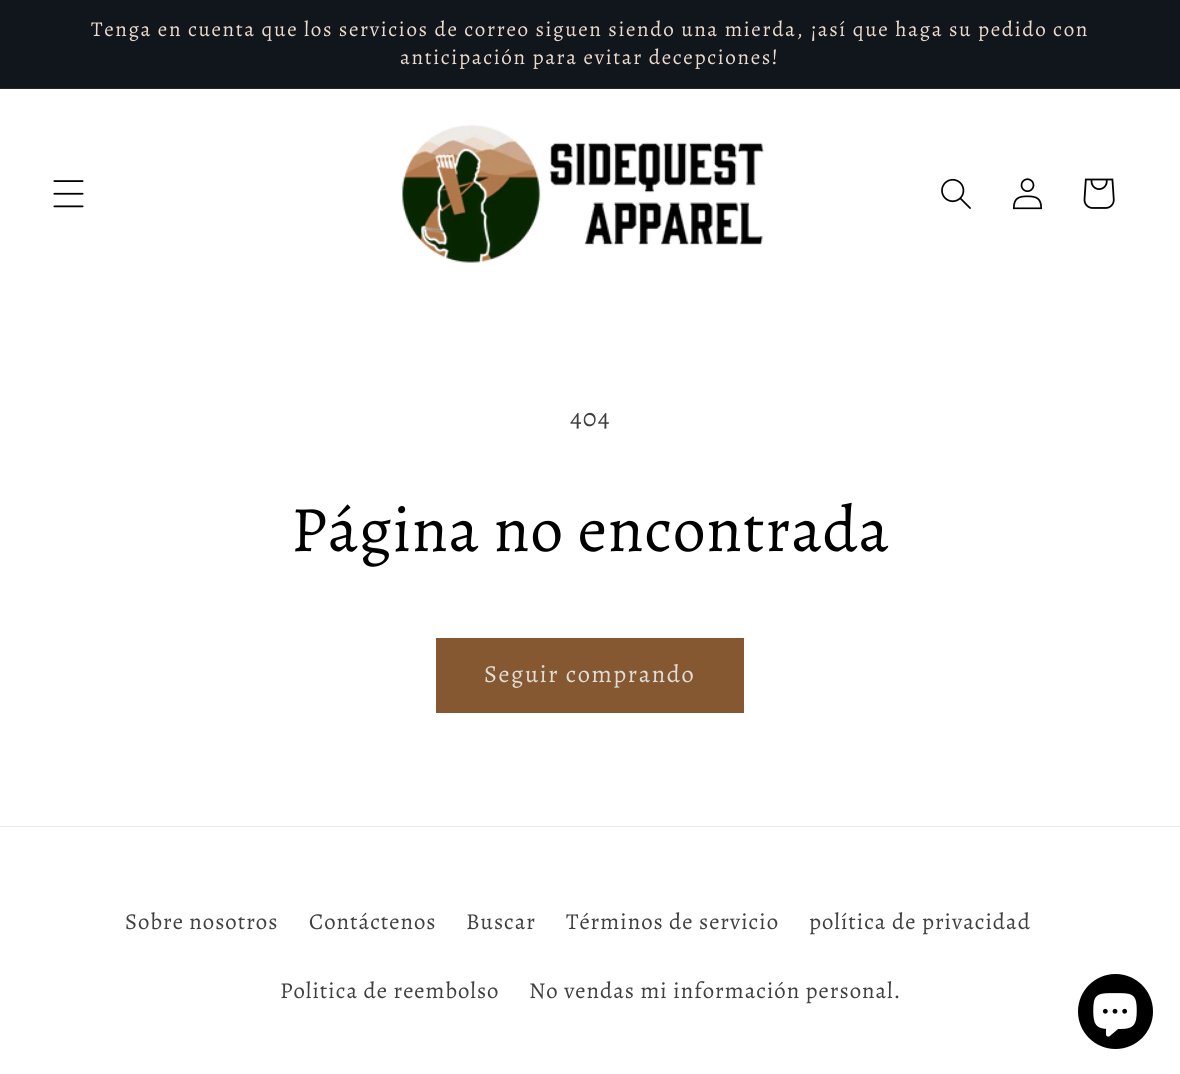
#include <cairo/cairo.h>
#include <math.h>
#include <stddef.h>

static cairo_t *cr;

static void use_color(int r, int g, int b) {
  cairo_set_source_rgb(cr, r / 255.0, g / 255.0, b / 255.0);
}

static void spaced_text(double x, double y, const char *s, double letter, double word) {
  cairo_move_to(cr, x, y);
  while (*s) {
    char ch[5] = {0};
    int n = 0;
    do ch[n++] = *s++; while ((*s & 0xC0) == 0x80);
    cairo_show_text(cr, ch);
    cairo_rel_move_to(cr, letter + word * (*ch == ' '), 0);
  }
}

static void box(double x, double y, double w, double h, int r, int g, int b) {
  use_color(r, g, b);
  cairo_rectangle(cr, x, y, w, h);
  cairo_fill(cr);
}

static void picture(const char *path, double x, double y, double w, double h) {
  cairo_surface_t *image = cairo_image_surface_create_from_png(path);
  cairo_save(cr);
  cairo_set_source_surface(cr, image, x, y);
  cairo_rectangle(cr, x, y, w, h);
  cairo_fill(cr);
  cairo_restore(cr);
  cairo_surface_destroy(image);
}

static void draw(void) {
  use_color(255, 255, 255);
  cairo_paint(cr);
  box(0, 0, 1180, 88, 17, 21, 28);
  box(0, 88, 1180, 1, 34, 37, 42);
  picture("img_01.png", 53, 180, 31, 28);
  picture("img_02.png", 402, 125, 362, 138);
  picture("img_03.png", 941, 178, 30, 31);
  picture("img_04.png", 1012, 178, 31, 32);
  picture("img_05.png", 1083, 178, 32, 31);
  box(436, 638, 308, 75, 133, 88, 50);
  box(0, 826, 1180, 1, 235, 235, 235);
  use_color(0, 0, 0);
  cairo_arc(cr, 1115.5, 1011.5, 37.5, 0, 2 * M_PI);
  cairo_fill(cr);
  picture("img_06.png", 1093, 993, 44, 44);
  cairo_select_font_face(cr, "Alegreya", CAIRO_FONT_SLANT_NORMAL, CAIRO_FONT_WEIGHT_NORMAL);
  cairo_set_font_size(cr, 21.1);
  use_color(235, 219, 204);
  spaced_text(91, 36, "Tenga en cuenta que los servicios de correo siguen siendo una mierda, ¡así que haga su pedido con", 1.62, 0);
  spaced_text(400, 64, "anticipación para evitar decepciones!", 1.62, 0);
  cairo_set_font_size(cr, 26);
  use_color(64, 64, 64);
  spaced_text(570, 426, "404", 1, 0);
  cairo_set_font_size(cr, 65);
  use_color(0, 0, 0);
  spaced_text(291, 551, "Página no encontrada", 1, 0);
  cairo_set_font_size(cr, 24.4);
  use_color(223, 223, 216);
  spaced_text(484, 682, "Seguir comprando", 1.62, 0);
  cairo_set_font_size(cr, 22.75);
  use_color(64, 64, 64);
  spaced_text(125, 929, "Sobre nosotros", 1, 0);
  spaced_text(309, 929, "Contáctenos", 1, 0);
  spaced_text(466, 929, "Buscar", 1, 0);
  spaced_text(566, 929, "Términos de servicio", 1, 0);
  spaced_text(809, 929, "política de privacidad", 1, 0);
  spaced_text(280, 998, "Politica de reembolso", 1, 0);
  spaced_text(529, 998, "No vendas mi información personal.", 1, 0);
}

int main(void) {
  cairo_surface_t *surface = cairo_image_surface_create(CAIRO_FORMAT_RGB24, 1180, 1074);
  cr = cairo_create(surface);
  cairo_font_options_t *options = cairo_font_options_create();
  cairo_font_options_set_hint_metrics(options, CAIRO_HINT_METRICS_OFF);
  cairo_font_options_set_hint_style(options, CAIRO_HINT_STYLE_NONE);
  cairo_set_font_options(cr, options);
  cairo_set_miter_limit(cr, 4);
  draw();
  cairo_surface_write_to_png(surface, "out.png");
  cairo_font_options_destroy(options);
  cairo_destroy(cr);
  cairo_surface_destroy(surface);
  return 0;
}
